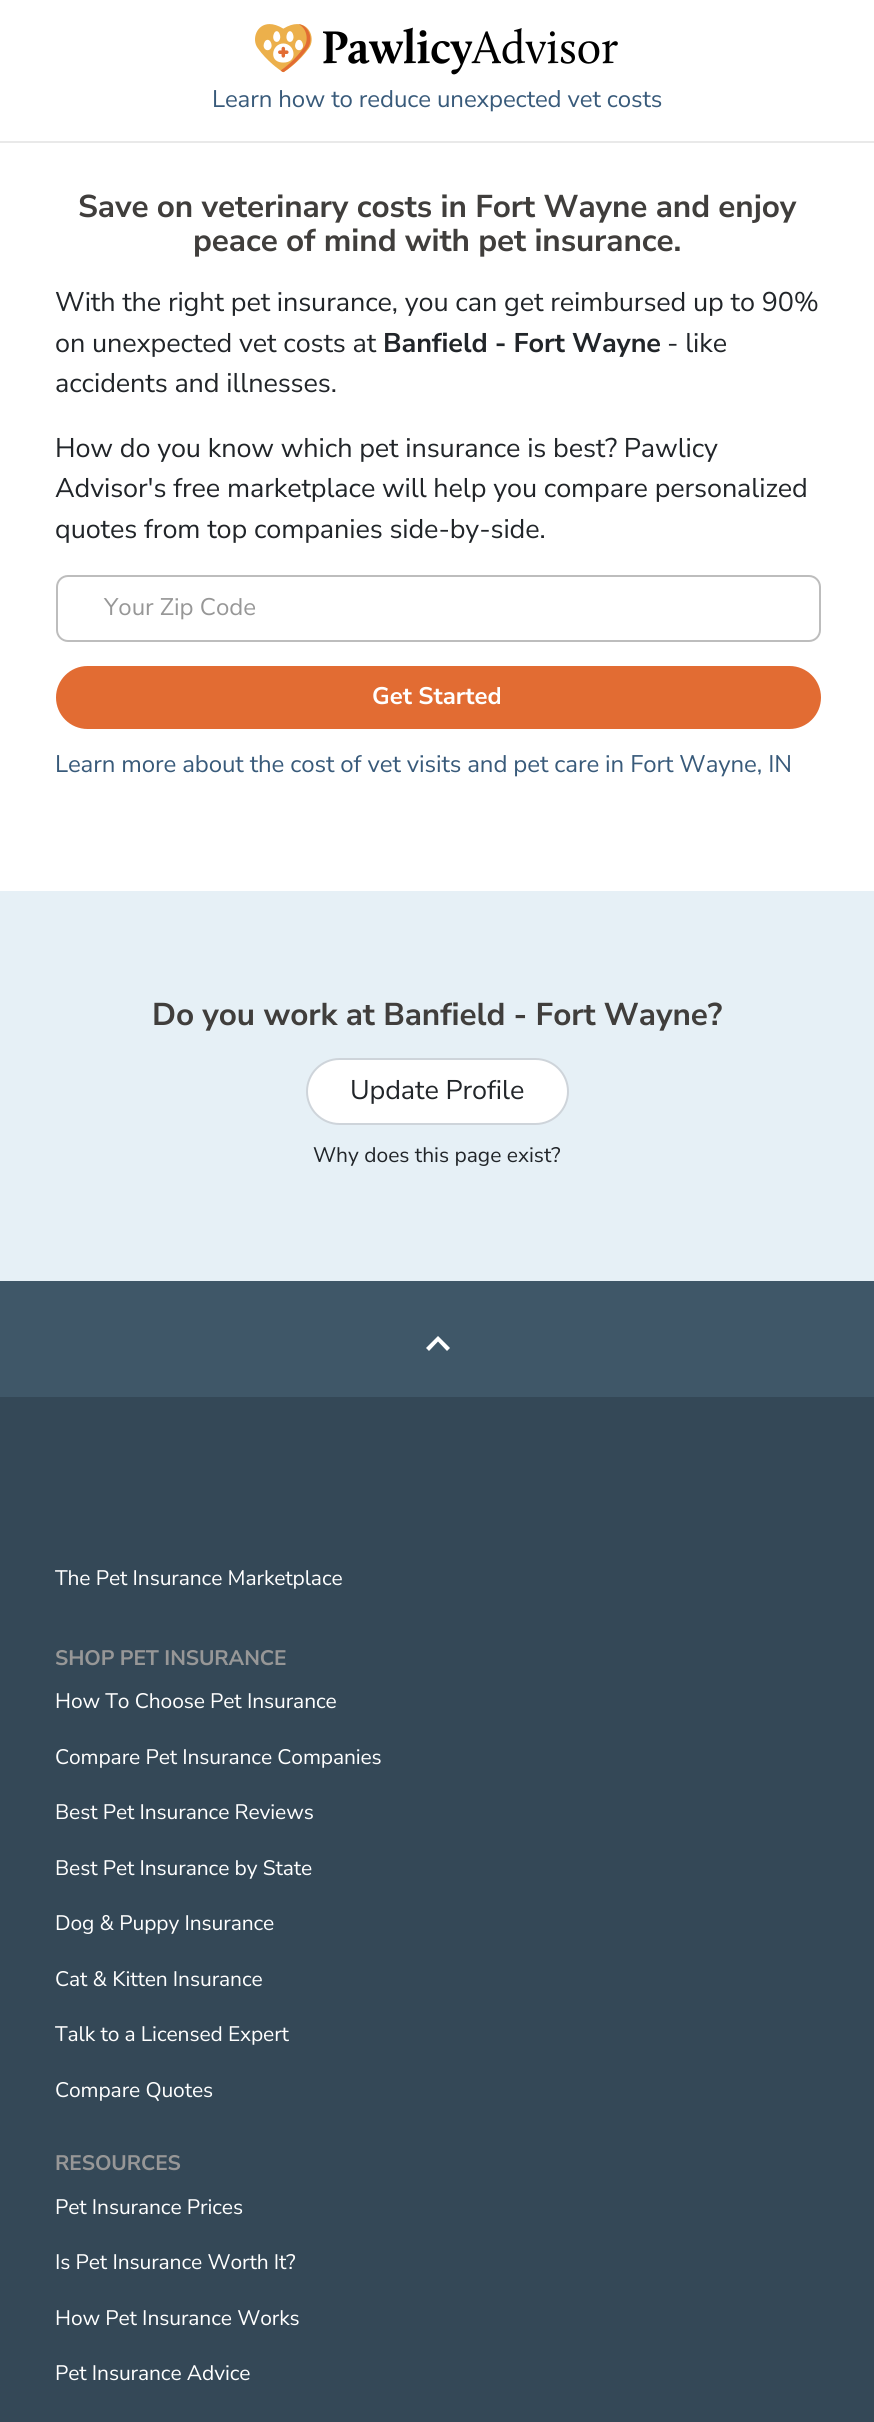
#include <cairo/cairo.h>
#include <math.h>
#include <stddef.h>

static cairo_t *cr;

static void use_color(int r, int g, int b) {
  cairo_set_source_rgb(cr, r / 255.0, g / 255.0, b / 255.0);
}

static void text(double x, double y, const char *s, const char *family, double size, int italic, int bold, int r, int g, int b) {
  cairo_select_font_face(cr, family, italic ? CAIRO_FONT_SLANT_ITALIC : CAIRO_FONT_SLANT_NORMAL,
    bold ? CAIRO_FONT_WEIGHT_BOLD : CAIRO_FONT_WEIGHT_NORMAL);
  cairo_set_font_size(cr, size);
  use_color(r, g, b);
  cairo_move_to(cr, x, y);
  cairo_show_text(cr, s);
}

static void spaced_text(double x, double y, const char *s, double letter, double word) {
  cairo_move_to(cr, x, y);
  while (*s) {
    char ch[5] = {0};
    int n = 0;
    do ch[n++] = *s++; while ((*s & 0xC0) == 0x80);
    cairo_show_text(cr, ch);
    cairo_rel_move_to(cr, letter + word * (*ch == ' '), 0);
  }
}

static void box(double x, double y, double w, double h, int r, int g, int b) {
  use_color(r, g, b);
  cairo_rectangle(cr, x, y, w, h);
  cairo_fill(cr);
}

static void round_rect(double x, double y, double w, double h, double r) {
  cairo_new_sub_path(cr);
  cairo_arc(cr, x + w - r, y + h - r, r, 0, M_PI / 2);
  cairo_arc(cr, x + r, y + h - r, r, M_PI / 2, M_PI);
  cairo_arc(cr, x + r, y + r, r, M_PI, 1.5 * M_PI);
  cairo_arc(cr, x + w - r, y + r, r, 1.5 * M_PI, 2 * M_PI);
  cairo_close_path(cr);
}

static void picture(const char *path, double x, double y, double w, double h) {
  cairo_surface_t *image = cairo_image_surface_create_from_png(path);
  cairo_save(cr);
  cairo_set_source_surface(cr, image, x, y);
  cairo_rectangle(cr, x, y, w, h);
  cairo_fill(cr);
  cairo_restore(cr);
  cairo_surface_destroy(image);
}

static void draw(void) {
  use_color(255, 255, 255);
  cairo_paint(cr);
  box(0, 141, 874, 2, 233, 233, 233);
  picture("img_01.png", 255, 24, 363, 51);
  round_rect(57, 576, 763, 65, 11);
  use_color(189, 189, 189);
  cairo_stroke(cr);
  use_color(226, 108, 51);
  round_rect(57, 667, 763, 61, 30.5);
  cairo_fill_preserve(cr);
  cairo_stroke(cr);
  box(0, 891, 874, 390, 230, 240, 246);
  use_color(255, 255, 255);
  round_rect(307, 1059, 261, 65, 32.5);
  cairo_fill_preserve(cr);
  use_color(206, 212, 218);
  cairo_stroke(cr);
  box(0, 1281, 874, 116, 63, 87, 104);
  use_color(255, 255, 255);
  cairo_new_path(cr);
  cairo_move_to(cr, 438, 1336);
  cairo_line_to(cr, 450, 1348);
  cairo_line_to(cr, 447, 1351);
  cairo_line_to(cr, 438, 1341.5);
  cairo_line_to(cr, 429, 1351);
  cairo_line_to(cr, 426, 1348);
  cairo_close_path(cr);
  cairo_fill(cr);
  box(0, 1397, 874, 1025, 52, 72, 87);
  cairo_select_font_face(cr, "Nunito Sans", CAIRO_FONT_SLANT_NORMAL, CAIRO_FONT_WEIGHT_NORMAL);
  cairo_set_font_size(cr, 24);
  use_color(56, 90, 122);
  spaced_text(212, 107, "Learn how to reduce unexpected vet costs", -0.1, 0);
  cairo_select_font_face(cr, "Nunito Sans", CAIRO_FONT_SLANT_NORMAL, CAIRO_FONT_WEIGHT_BOLD);
  cairo_set_font_size(cr, 31.5);
  use_color(64, 62, 60);
  spaced_text(78, 217, "Save on veterinary costs in Fort Wayne and enjoy", -0.1, 0);
  spaced_text(193, 251, "peace of mind with pet insurance.", -0.1, 0);
  cairo_select_font_face(cr, "Nunito Sans", CAIRO_FONT_SLANT_NORMAL, CAIRO_FONT_WEIGHT_NORMAL);
  cairo_set_font_size(cr, 27);
  use_color(33, 37, 41);
  spaced_text(55, 311, "With the right pet insurance, you can get reimbursed up to 90%", -0.1, 0);
  spaced_text(55, 352, "on unexpected vet costs at", -0.1, 0);
  cairo_select_font_face(cr, "Nunito Sans", CAIRO_FONT_SLANT_NORMAL, CAIRO_FONT_WEIGHT_BOLD);
  spaced_text(383, 352, "Banfield - Fort Wayne", -0.1, 0);
  cairo_select_font_face(cr, "Nunito Sans", CAIRO_FONT_SLANT_NORMAL, CAIRO_FONT_WEIGHT_NORMAL);
  spaced_text(667, 352, "- like", -0.1, 0);
  spaced_text(55, 392, "accidents and illnesses.", -0.1, 0);
  spaced_text(55, 457, "How do you know which pet insurance is best? Pawlicy", -0.1, 0);
  spaced_text(55, 497, "Advisor's free marketplace will help you compare personalized", -0.1, 0);
  spaced_text(55, 538, "quotes from top companies side-by-side.", -0.1, 0);
  text(104, 615, "Your Zip Code", "Nunito Sans", 24, 0, 0, 151, 151, 151);
  text(372, 704, "Get Started", "Nunito Sans", 24, 0, 1, 255, 255, 255);
  cairo_select_font_face(cr, "Nunito Sans", CAIRO_FONT_SLANT_NORMAL, CAIRO_FONT_WEIGHT_NORMAL);
  use_color(56, 90, 122);
  spaced_text(55, 772, "Learn more about the cost of vet visits and pet care in Fort Wayne, IN", -0.1, 0);
  cairo_select_font_face(cr, "Nunito Sans", CAIRO_FONT_SLANT_NORMAL, CAIRO_FONT_WEIGHT_BOLD);
  cairo_set_font_size(cr, 31.5);
  use_color(64, 62, 60);
  spaced_text(152, 1025, "Do you work at Banfield - Fort Wayne?", -0.1, 0);
  cairo_select_font_face(cr, "Nunito Sans", CAIRO_FONT_SLANT_NORMAL, CAIRO_FONT_WEIGHT_NORMAL);
  cairo_set_font_size(cr, 27);
  use_color(33, 37, 41);
  spaced_text(350, 1099, "Update Profile", -0.1, 0);
  text(313, 1162, "Why does this page exist?", "Nunito Sans", 21, 0, 0, 33, 37, 41);
  use_color(255, 255, 255);
  spaced_text(55, 1585, "The Pet Insurance Marketplace", -0.1, 0);
  cairo_select_font_face(cr, "Nunito Sans", CAIRO_FONT_SLANT_NORMAL, CAIRO_FONT_WEIGHT_BOLD);
  use_color(151, 151, 151);
  spaced_text(55, 1665, "SHOP PET INSURANCE", -0.1, 0);
  cairo_select_font_face(cr, "Nunito Sans", CAIRO_FONT_SLANT_NORMAL, CAIRO_FONT_WEIGHT_NORMAL);
  use_color(255, 255, 255);
  spaced_text(55, 1708, "How To Choose Pet Insurance", -0.1, 0);
  spaced_text(55, 1764, "Compare Pet Insurance Companies", -0.1, 0);
  spaced_text(55, 1819, "Best Pet Insurance Reviews", -0.1, 0);
  spaced_text(55, 1875, "Best Pet Insurance by State", -0.1, 0);
  spaced_text(55, 1930, "Dog & Puppy Insurance", -0.1, 0);
  spaced_text(55, 1986, "Cat & Kitten Insurance", -0.1, 0);
  spaced_text(55, 2041, "Talk to a Licensed Expert", -0.1, 0);
  spaced_text(55, 2097, "Compare Quotes", -0.1, 0);
  cairo_select_font_face(cr, "Nunito Sans", CAIRO_FONT_SLANT_NORMAL, CAIRO_FONT_WEIGHT_BOLD);
  use_color(151, 151, 151);
  spaced_text(55, 2170, "RESOURCES", -0.1, 0);
  cairo_select_font_face(cr, "Nunito Sans", CAIRO_FONT_SLANT_NORMAL, CAIRO_FONT_WEIGHT_NORMAL);
  use_color(255, 255, 255);
  spaced_text(55, 2214, "Pet Insurance Prices", -0.1, 0);
  spaced_text(55, 2269, "Is Pet Insurance Worth It?", -0.1, 0);
  spaced_text(55, 2325, "How Pet Insurance Works", -0.1, 0);
  spaced_text(55, 2380, "Pet Insurance Advice", -0.1, 0);
}

int main(void) {
  cairo_surface_t *surface = cairo_image_surface_create(CAIRO_FORMAT_RGB24, 874, 2422);
  cr = cairo_create(surface);
  cairo_font_options_t *options = cairo_font_options_create();
  cairo_font_options_set_hint_metrics(options, CAIRO_HINT_METRICS_OFF);
  cairo_font_options_set_hint_style(options, CAIRO_HINT_STYLE_NONE);
  cairo_set_font_options(cr, options);
  cairo_set_miter_limit(cr, 4);
  draw();
  cairo_surface_write_to_png(surface, "out.png");
  cairo_font_options_destroy(options);
  cairo_destroy(cr);
  cairo_surface_destroy(surface);
  return 0;
}
